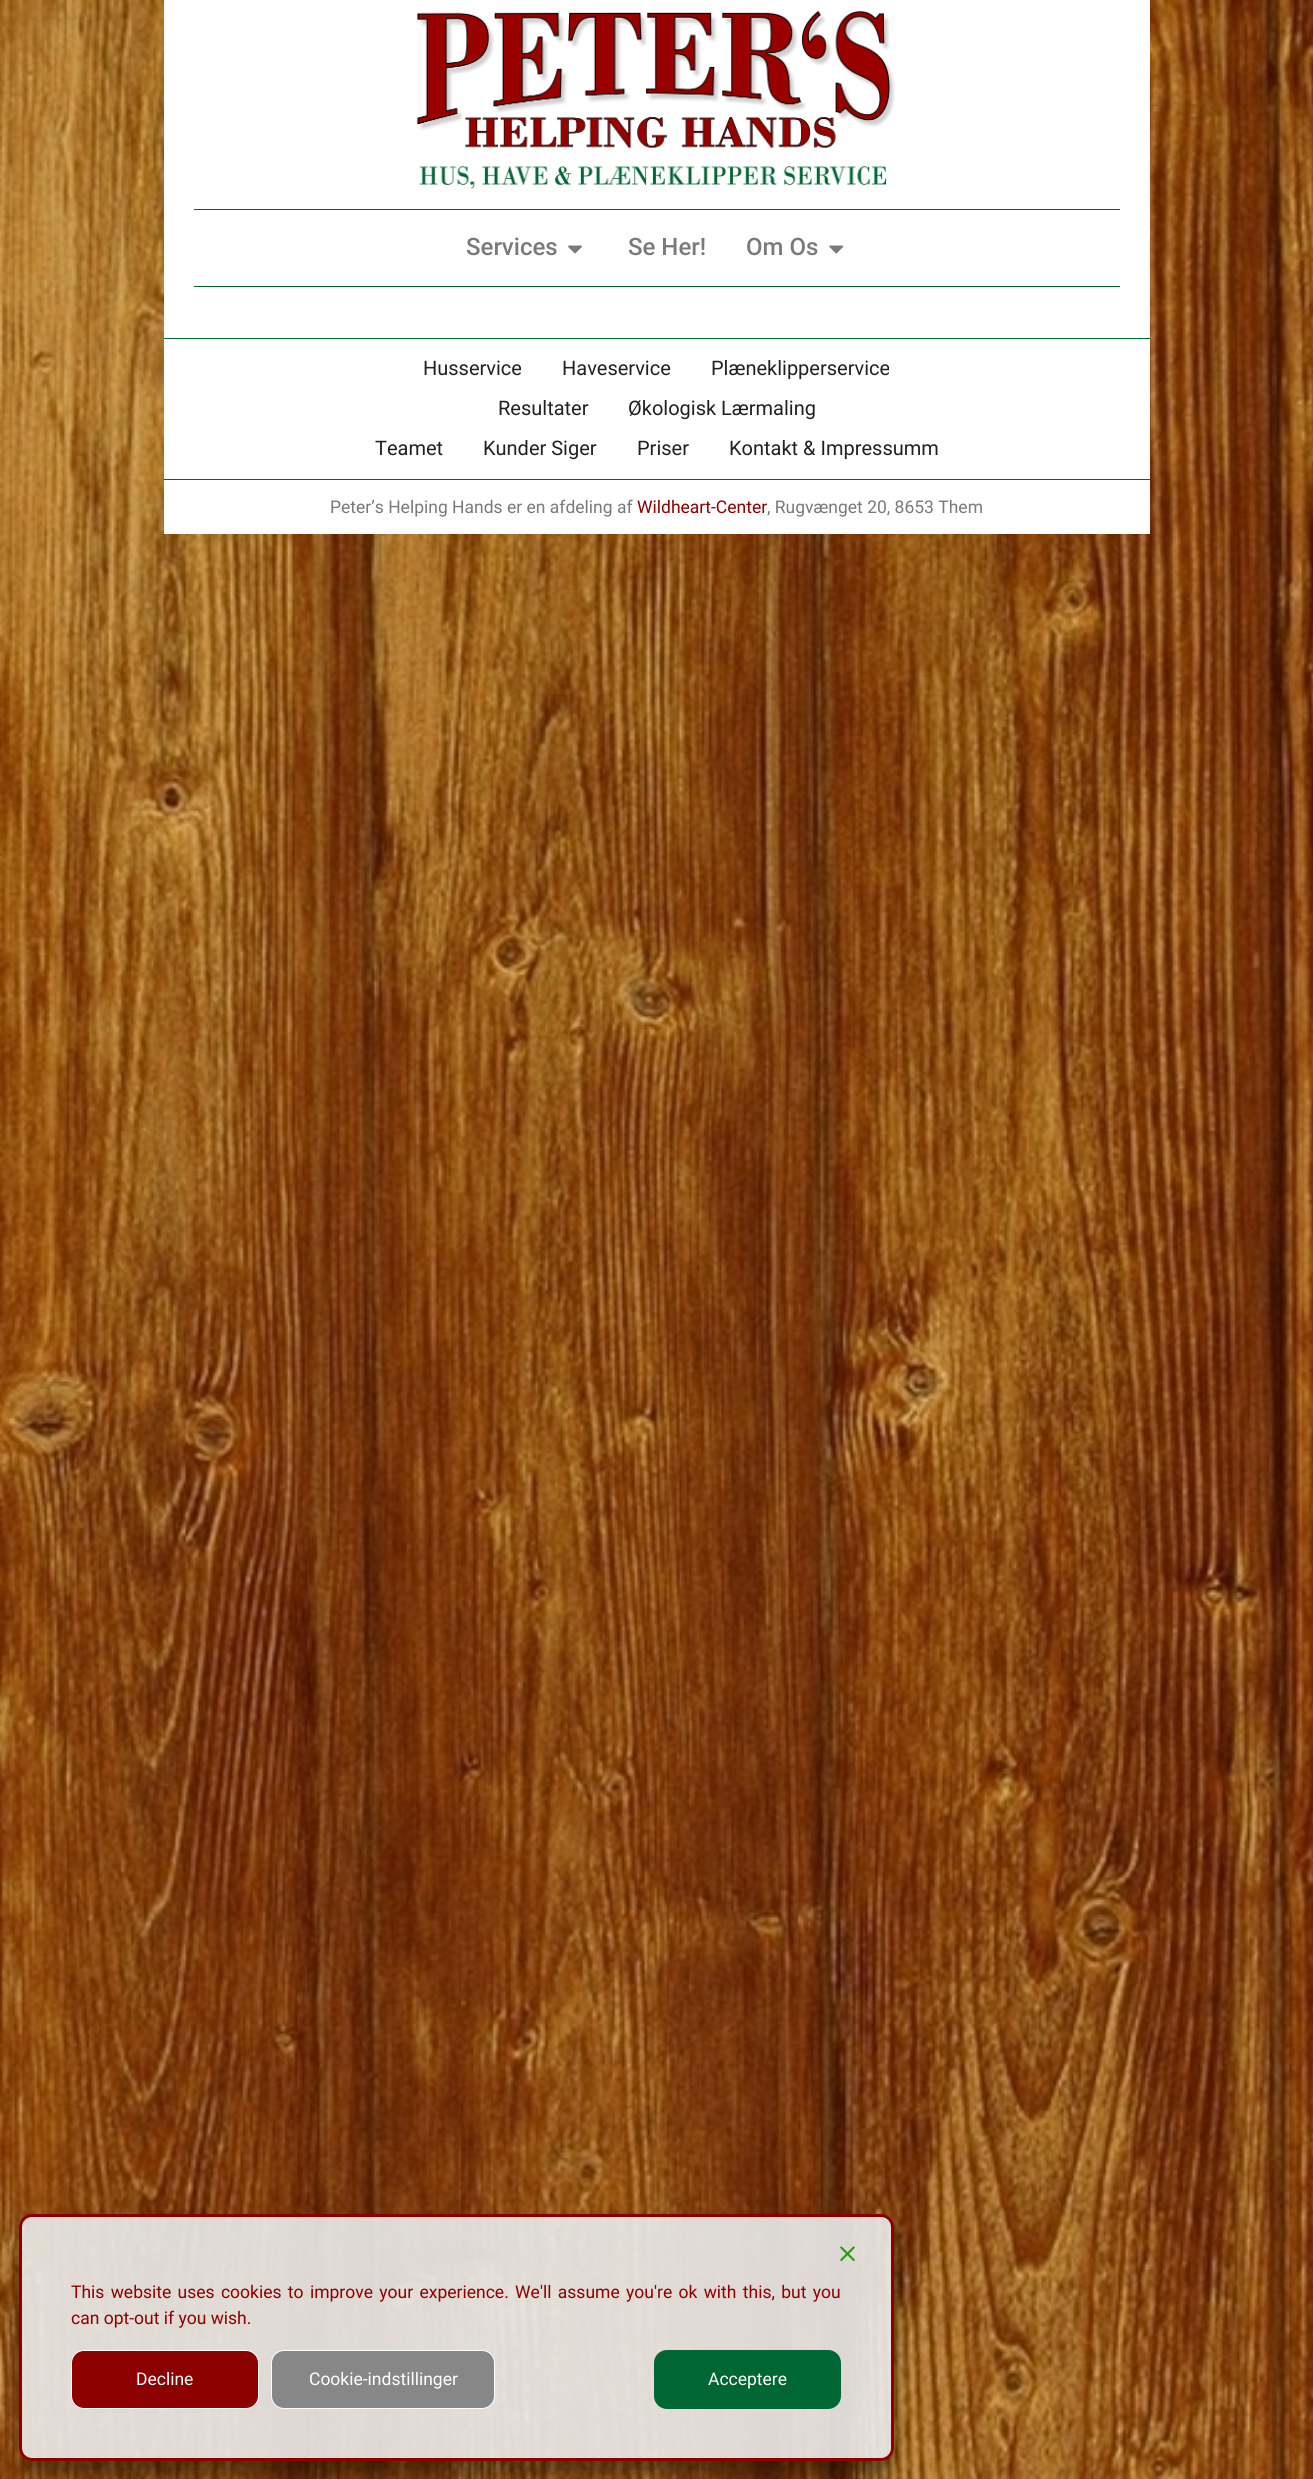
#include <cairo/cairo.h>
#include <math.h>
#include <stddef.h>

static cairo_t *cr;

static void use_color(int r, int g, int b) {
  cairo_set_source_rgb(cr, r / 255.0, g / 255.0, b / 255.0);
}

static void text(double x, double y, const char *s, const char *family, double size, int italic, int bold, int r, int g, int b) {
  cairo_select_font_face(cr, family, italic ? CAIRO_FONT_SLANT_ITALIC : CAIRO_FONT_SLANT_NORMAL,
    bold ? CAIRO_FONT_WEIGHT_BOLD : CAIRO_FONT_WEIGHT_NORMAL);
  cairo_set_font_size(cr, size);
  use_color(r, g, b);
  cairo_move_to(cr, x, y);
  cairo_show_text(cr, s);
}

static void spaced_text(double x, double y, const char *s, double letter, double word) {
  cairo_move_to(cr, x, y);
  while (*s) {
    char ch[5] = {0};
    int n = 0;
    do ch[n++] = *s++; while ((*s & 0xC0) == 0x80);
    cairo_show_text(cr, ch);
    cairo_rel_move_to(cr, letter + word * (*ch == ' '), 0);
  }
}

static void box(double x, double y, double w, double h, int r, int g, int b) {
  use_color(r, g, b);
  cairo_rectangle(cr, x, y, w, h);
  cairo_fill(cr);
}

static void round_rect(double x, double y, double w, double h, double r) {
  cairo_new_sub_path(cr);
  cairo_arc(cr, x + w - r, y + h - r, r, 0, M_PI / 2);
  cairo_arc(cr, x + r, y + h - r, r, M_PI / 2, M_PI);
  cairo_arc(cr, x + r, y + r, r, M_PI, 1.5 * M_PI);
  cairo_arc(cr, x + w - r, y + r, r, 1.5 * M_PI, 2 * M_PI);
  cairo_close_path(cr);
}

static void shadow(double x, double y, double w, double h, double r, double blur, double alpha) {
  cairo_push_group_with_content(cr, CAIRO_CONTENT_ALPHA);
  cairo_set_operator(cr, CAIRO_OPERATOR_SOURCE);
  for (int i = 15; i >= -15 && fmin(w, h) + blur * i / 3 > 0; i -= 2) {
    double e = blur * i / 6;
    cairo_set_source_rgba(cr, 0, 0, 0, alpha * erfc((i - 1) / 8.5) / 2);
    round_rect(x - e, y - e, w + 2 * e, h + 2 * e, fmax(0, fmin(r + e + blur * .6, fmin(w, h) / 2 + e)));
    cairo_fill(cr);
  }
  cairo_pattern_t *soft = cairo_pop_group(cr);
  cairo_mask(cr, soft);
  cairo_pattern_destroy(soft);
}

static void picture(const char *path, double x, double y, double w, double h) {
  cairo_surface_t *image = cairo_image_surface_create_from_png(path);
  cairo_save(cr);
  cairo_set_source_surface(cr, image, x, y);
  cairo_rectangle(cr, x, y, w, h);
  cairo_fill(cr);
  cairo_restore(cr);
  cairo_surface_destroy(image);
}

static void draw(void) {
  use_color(255, 255, 255);
  cairo_paint(cr);
  picture("img_01.png", 0, 0, 1313, 2479);
  box(164, 0, 986, 534, 255, 255, 255);
  picture("img_02.png", 416, 10, 479, 179);
  box(194, 209, 926, 1, 0, 102, 51);
  picture("img_03.png", 568, 245, 14, 9);
  picture("img_04.png", 829, 245, 15, 9);
  box(194, 286, 926, 1, 0, 102, 51);
  box(164, 338, 986, 1, 0, 102, 51);
  box(164, 479, 986, 1, 0, 102, 51);
  cairo_save(cr);
  cairo_set_fill_rule(cr, CAIRO_FILL_RULE_EVEN_ODD);
  cairo_new_path(cr);
  cairo_move_to(cr, 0, 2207);
  cairo_line_to(cr, 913, 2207);
  cairo_line_to(cr, 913, 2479);
  cairo_line_to(cr, 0, 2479);
  cairo_close_path(cr);
  cairo_move_to(cr, 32, 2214);
  cairo_line_to(cr, 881, 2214);
  cairo_curve_to(cr, 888, 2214, 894, 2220, 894, 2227);
  cairo_line_to(cr, 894, 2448);
  cairo_curve_to(cr, 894, 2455, 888, 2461, 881, 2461);
  cairo_line_to(cr, 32, 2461);
  cairo_curve_to(cr, 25, 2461, 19, 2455, 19, 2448);
  cairo_line_to(cr, 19, 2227);
  cairo_curve_to(cr, 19, 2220, 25, 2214, 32, 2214);
  cairo_close_path(cr);
  cairo_clip(cr);
  use_color(0, 0, 0);
  shadow(19, 2226, 875, 248, 13, 6, 0.22);
  cairo_restore(cr);
  cairo_save(cr);
  cairo_set_fill_rule(cr, CAIRO_FILL_RULE_EVEN_ODD);
  cairo_new_path(cr);
  cairo_move_to(cr, 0, 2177);
  cairo_line_to(cr, 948, 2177);
  cairo_line_to(cr, 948, 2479);
  cairo_line_to(cr, 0, 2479);
  cairo_close_path(cr);
  cairo_move_to(cr, 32, 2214);
  cairo_line_to(cr, 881, 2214);
  cairo_curve_to(cr, 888, 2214, 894, 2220, 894, 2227);
  cairo_line_to(cr, 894, 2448);
  cairo_curve_to(cr, 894, 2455, 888, 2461, 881, 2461);
  cairo_line_to(cr, 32, 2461);
  cairo_curve_to(cr, 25, 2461, 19, 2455, 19, 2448);
  cairo_line_to(cr, 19, 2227);
  cairo_curve_to(cr, 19, 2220, 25, 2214, 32, 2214);
  cairo_close_path(cr);
  cairo_clip(cr);
  use_color(0, 0, 0);
  shadow(19, 2231, 875, 248, 13, 17.5, 0.25);
  cairo_restore(cr);
  cairo_set_source_rgba(cr, 0.922, 0.922, 0.922, 0.9);
  round_rect(20.5, 2215.5, 872, 244, 11.5);
  cairo_fill_preserve(cr);
  use_color(141, 0, 0);
  cairo_set_line_width(cr, 3);
  cairo_stroke(cr);
  picture("img_05.png", 840, 2246, 15, 15);
  round_rect(71.5, 2350.5, 187, 58, 12.5);
  cairo_fill_preserve(cr);
  use_color(255, 255, 255);
  cairo_set_line_width(cr, 1);
  cairo_stroke(cr);
  use_color(135, 135, 135);
  round_rect(271.5, 2350.5, 223, 58, 12.5);
  cairo_fill_preserve(cr);
  use_color(255, 255, 255);
  cairo_stroke(cr);
  use_color(0, 102, 51);
  round_rect(654, 2350, 187, 59, 13);
  cairo_fill(cr);
  text(466, 255, "Services", "Roboto Medium", 24, 0, 0, 122, 122, 122);
  text(628, 255, "Se Her!", "Roboto Medium", 24, 0, 0, 122, 122, 122);
  text(746, 255, "Om Os", "Roboto Medium", 24, 0, 0, 122, 122, 122);
  text(423, 375, "Husservice", "Roboto", 20, 0, 0, 31, 33, 36);
  text(562, 375, "Haveservice", "Roboto", 20, 0, 0, 31, 33, 36);
  text(711, 375, "Plæneklipperservice", "Roboto", 20, 0, 0, 31, 33, 36);
  text(498, 415, "Resultater", "Roboto", 20, 0, 0, 31, 33, 36);
  text(628, 415, "Økologisk Lærmaling", "Roboto", 20, 0, 0, 31, 33, 36);
  text(375, 455, "Teamet", "Roboto", 20, 0, 0, 31, 33, 36);
  text(483, 455, "Kunder Siger", "Roboto", 20, 0, 0, 31, 33, 36);
  text(637, 455, "Priser", "Roboto", 20, 0, 0, 31, 33, 36);
  text(729, 455, "Kontakt & Impressumm", "Roboto", 20, 0, 0, 31, 33, 36);
  text(330, 513, "Peter’s Helping Hands er en afdeling af", "Roboto", 17.5, 0, 0, 122, 122, 122);
  text(637, 513, "Wildheart-Center", "Roboto", 17.5, 0, 0, 141, 0, 0);
  text(767, 513, ", Rugvænget 20, 8653 Them", "Roboto", 17.5, 0, 0, 122, 122, 122);
  use_color(141, 0, 0);
  spaced_text(71, 2298, "This website uses cookies to improve your experience. We'll assume you're ok with this, but you", 0, 2);
  text(71, 2324, "can opt-out if you wish.", "Roboto", 17.5, 0, 0, 141, 0, 0);
  text(136, 2385, "Decline", "Roboto", 17.5, 0, 0, 255, 255, 255);
  text(309, 2385, "Cookie-indstillinger", "Roboto", 17.5, 0, 0, 255, 255, 255);
  text(708, 2385, "Acceptere", "Roboto", 17.5, 0, 0, 255, 255, 255);
}

int main(void) {
  cairo_surface_t *surface = cairo_image_surface_create(CAIRO_FORMAT_RGB24, 1313, 2479);
  cr = cairo_create(surface);
  cairo_font_options_t *options = cairo_font_options_create();
  cairo_font_options_set_hint_metrics(options, CAIRO_HINT_METRICS_OFF);
  cairo_font_options_set_hint_style(options, CAIRO_HINT_STYLE_NONE);
  cairo_set_font_options(cr, options);
  cairo_set_miter_limit(cr, 4);
  draw();
  cairo_surface_write_to_png(surface, "out.png");
  cairo_font_options_destroy(options);
  cairo_destroy(cr);
  cairo_surface_destroy(surface);
  return 0;
}
